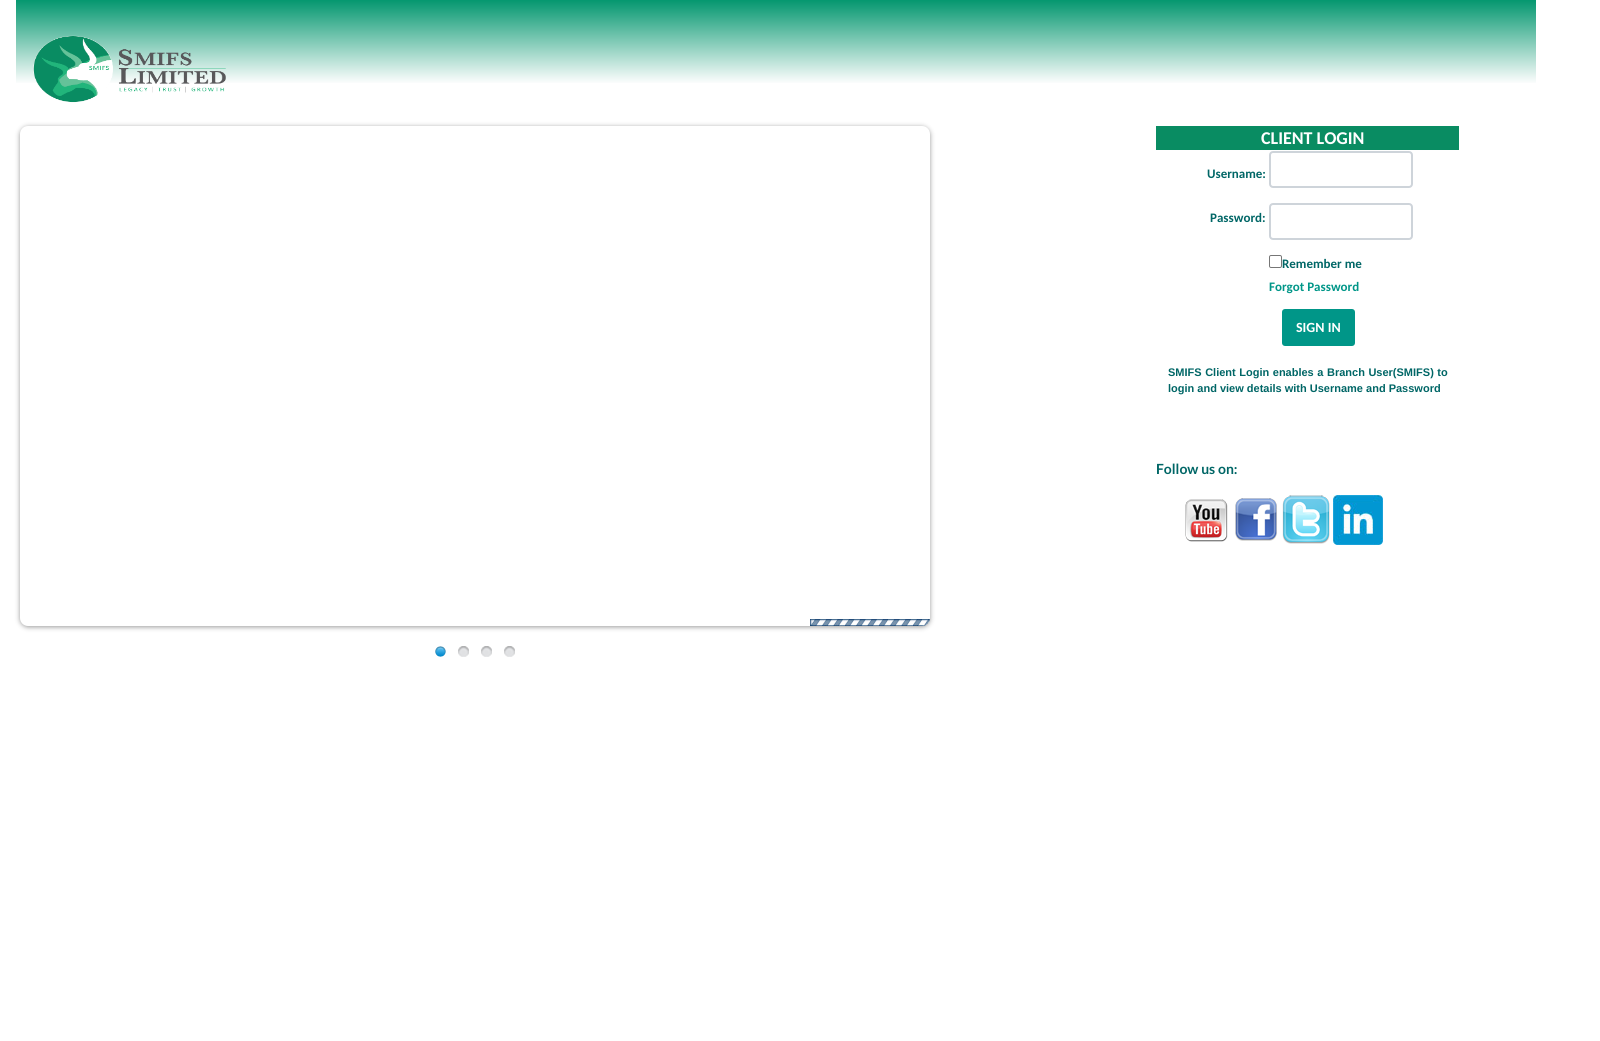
#include <cairo/cairo.h>
#include <math.h>
#include <stddef.h>

static cairo_t *cr;

static void use_color(int r, int g, int b) {
  cairo_set_source_rgb(cr, r / 255.0, g / 255.0, b / 255.0);
}

static void text(double x, double y, const char *s, const char *family, double size, int italic, int bold, int r, int g, int b) {
  cairo_select_font_face(cr, family, italic ? CAIRO_FONT_SLANT_ITALIC : CAIRO_FONT_SLANT_NORMAL,
    bold ? CAIRO_FONT_WEIGHT_BOLD : CAIRO_FONT_WEIGHT_NORMAL);
  cairo_set_font_size(cr, size);
  use_color(r, g, b);
  cairo_move_to(cr, x, y);
  cairo_show_text(cr, s);
}

static void spaced_text(double x, double y, const char *s, double letter, double word) {
  cairo_move_to(cr, x, y);
  while (*s) {
    char ch[5] = {0};
    int n = 0;
    do ch[n++] = *s++; while ((*s & 0xC0) == 0x80);
    cairo_show_text(cr, ch);
    cairo_rel_move_to(cr, letter + word * (*ch == ' '), 0);
  }
}

static void box(double x, double y, double w, double h, int r, int g, int b) {
  use_color(r, g, b);
  cairo_rectangle(cr, x, y, w, h);
  cairo_fill(cr);
}

static void round_rect(double x, double y, double w, double h, double r) {
  cairo_new_sub_path(cr);
  cairo_arc(cr, x + w - r, y + h - r, r, 0, M_PI / 2);
  cairo_arc(cr, x + r, y + h - r, r, M_PI / 2, M_PI);
  cairo_arc(cr, x + r, y + r, r, M_PI, 1.5 * M_PI);
  cairo_arc(cr, x + w - r, y + r, r, 1.5 * M_PI, 2 * M_PI);
  cairo_close_path(cr);
}

static void shadow(double x, double y, double w, double h, double r, double blur, double alpha) {
  cairo_push_group_with_content(cr, CAIRO_CONTENT_ALPHA);
  cairo_set_operator(cr, CAIRO_OPERATOR_SOURCE);
  for (int i = 15; i >= -15 && fmin(w, h) + blur * i / 3 > 0; i -= 2) {
    double e = blur * i / 6;
    cairo_set_source_rgba(cr, 0, 0, 0, alpha * erfc((i - 1) / 8.5) / 2);
    round_rect(x - e, y - e, w + 2 * e, h + 2 * e, fmax(0, fmin(r + e + blur * .6, fmin(w, h) / 2 + e)));
    cairo_fill(cr);
  }
  cairo_pattern_t *soft = cairo_pop_group(cr);
  cairo_mask(cr, soft);
  cairo_pattern_destroy(soft);
}

static void picture(const char *path, double x, double y, double w, double h) {
  cairo_surface_t *image = cairo_image_surface_create_from_png(path);
  cairo_save(cr);
  cairo_set_source_surface(cr, image, x, y);
  cairo_rectangle(cr, x, y, w, h);
  cairo_fill(cr);
  cairo_restore(cr);
  cairo_surface_destroy(image);
}

static void draw(void) {
  cairo_pattern_t *gradient;
  use_color(255, 255, 255);
  cairo_paint(cr);
  gradient = cairo_pattern_create_linear(16, 0, 16, 83);
  cairo_pattern_add_color_stop_rgba(gradient, 0, 0.016, 0.592, 0.435, 1);
  cairo_pattern_add_color_stop_rgba(gradient, 1, 0.988, 0.992, 0.992, 1);
  cairo_set_source(cr, gradient);
  cairo_pattern_destroy(gradient);
  cairo_rectangle(cr, 16, 0, 1520, 83);
  cairo_fill(cr);
  picture("img_01.png", 33, 35, 193, 68);
  use_color(153, 153, 153);
  shadow(20, 127, 910, 500, 8, 2.5, 1);
  use_color(255, 255, 255);
  round_rect(20, 126, 910, 500, 8);
  cairo_fill(cr);
  picture("img_02.png", 810, 619, 120, 7);
  picture("img_03.png", 435, 646, 11, 11);
  picture("img_04.png", 458, 646, 11, 11);
  picture("img_04.png", 481, 646, 11, 11);
  picture("img_04.png", 504, 646, 11, 11);
  box(1156, 126, 303, 24, 9, 140, 98);
  round_rect(1270, 152, 142, 35, 3);
  use_color(206, 212, 218);
  cairo_stroke(cr);
  round_rect(1270, 204, 142, 35, 3);
  cairo_stroke(cr);
  round_rect(1269.5, 255.5, 12, 12, 1.5);
  use_color(118, 118, 118);
  cairo_set_line_width(cr, 1);
  cairo_stroke(cr);
  use_color(0, 150, 136);
  round_rect(1283, 310, 71, 35, 2);
  cairo_fill_preserve(cr);
  cairo_set_line_width(cr, 2);
  cairo_stroke(cr);
  picture("img_05.png", 1185, 499, 43, 43);
  picture("img_06.png", 1235, 498, 42, 43);
  picture("img_07.png", 1282, 495, 48, 49);
  picture("img_08.png", 1333, 495, 50, 50);
  text(1261, 144, "CLIENT LOGIN", "Carlito", 18, 0, 1, 255, 255, 255);
  text(1207, 178, "Username:", "Carlito", 13, 0, 1, 0, 102, 102);
  text(1210, 222, "Password:", "Carlito", 13, 0, 1, 0, 102, 102);
  text(1282, 268, "Remember me", "Carlito", 13, 0, 1, 0, 102, 102);
  text(1269, 291, "Forgot Password", "Carlito", 13, 0, 1, 0, 150, 136);
  text(1296, 332, "SIGN IN", "Carlito", 14, 0, 1, 255, 255, 255);
  cairo_select_font_face(cr, "Liberation Sans", CAIRO_FONT_SLANT_NORMAL, CAIRO_FONT_WEIGHT_BOLD);
  cairo_set_font_size(cr, 11);
  use_color(0, 102, 102);
  spaced_text(1168, 376, "SMIFS Client Login enables a Branch User(SMIFS) to", 0, 0.5);
  text(1168, 392, "login and view details with Username and Password", "Liberation Sans", 11, 0, 1, 0, 102, 102);
  text(1156, 474, "Follow us on:", "Lato", 14, 0, 1, 0, 102, 102);
}

int main(void) {
  cairo_surface_t *surface = cairo_image_surface_create(CAIRO_FORMAT_RGB24, 1600, 1041);
  cr = cairo_create(surface);
  cairo_font_options_t *options = cairo_font_options_create();
  cairo_font_options_set_hint_metrics(options, CAIRO_HINT_METRICS_OFF);
  cairo_font_options_set_hint_style(options, CAIRO_HINT_STYLE_NONE);
  cairo_set_font_options(cr, options);
  cairo_set_miter_limit(cr, 4);
  draw();
  cairo_surface_write_to_png(surface, "out.png");
  cairo_font_options_destroy(options);
  cairo_destroy(cr);
  cairo_surface_destroy(surface);
  return 0;
}
